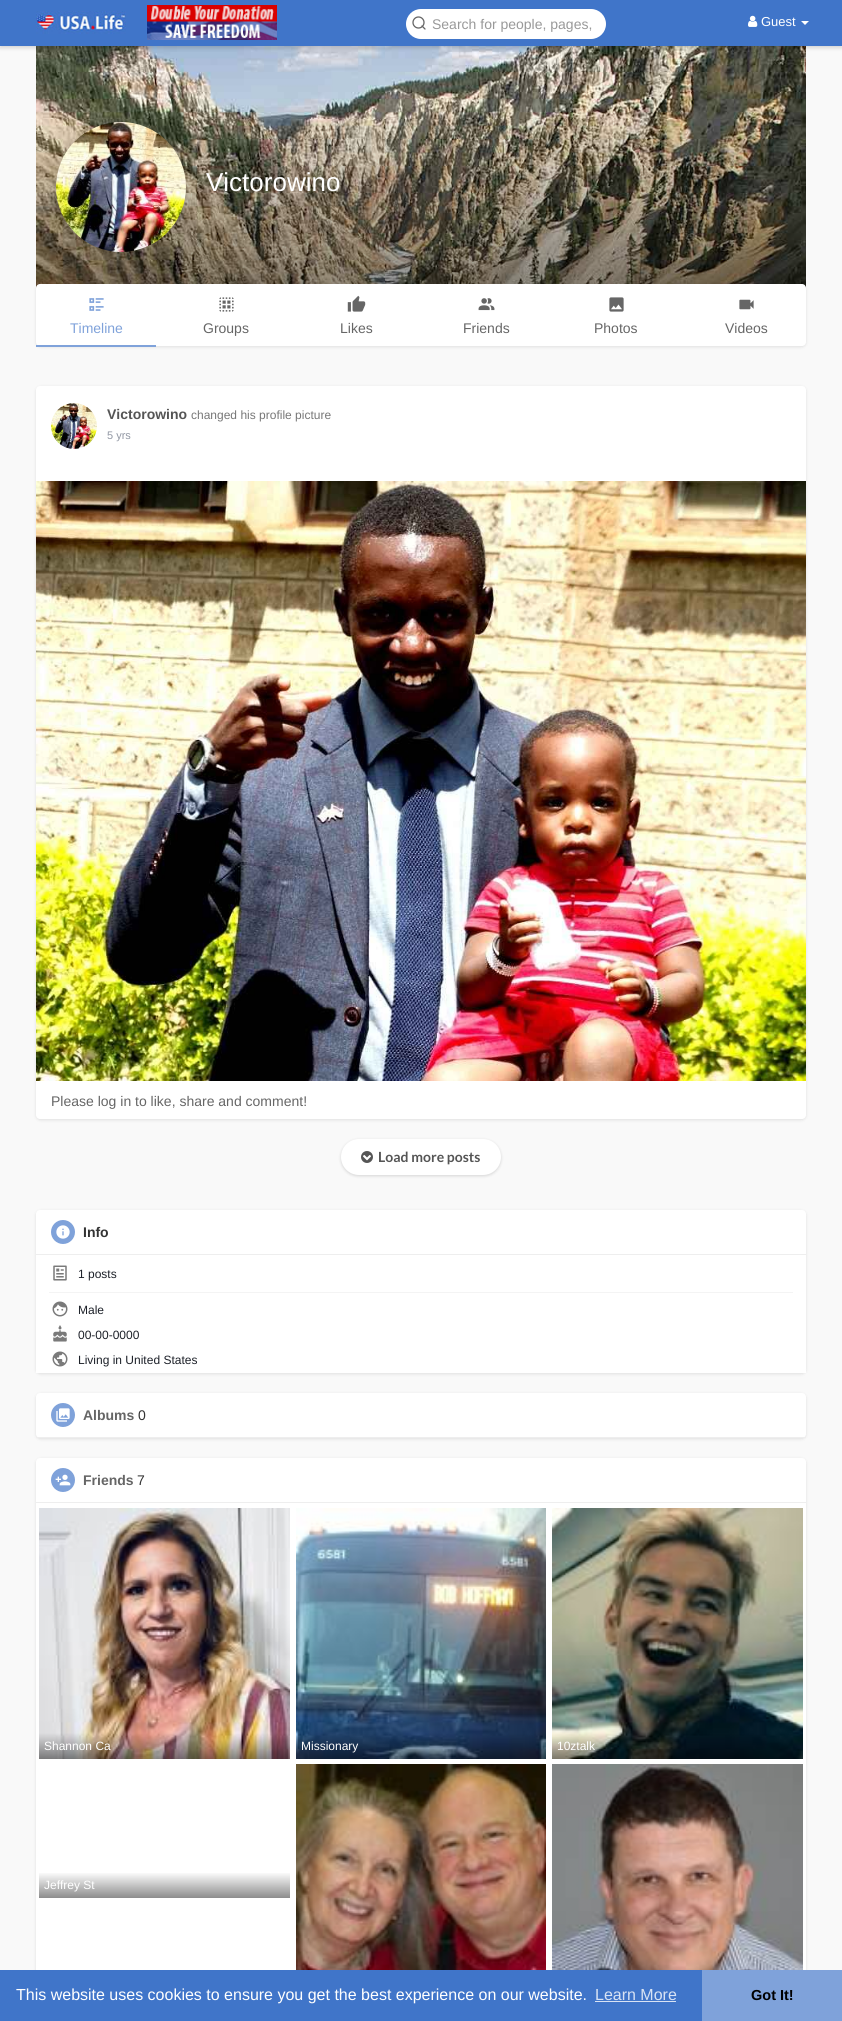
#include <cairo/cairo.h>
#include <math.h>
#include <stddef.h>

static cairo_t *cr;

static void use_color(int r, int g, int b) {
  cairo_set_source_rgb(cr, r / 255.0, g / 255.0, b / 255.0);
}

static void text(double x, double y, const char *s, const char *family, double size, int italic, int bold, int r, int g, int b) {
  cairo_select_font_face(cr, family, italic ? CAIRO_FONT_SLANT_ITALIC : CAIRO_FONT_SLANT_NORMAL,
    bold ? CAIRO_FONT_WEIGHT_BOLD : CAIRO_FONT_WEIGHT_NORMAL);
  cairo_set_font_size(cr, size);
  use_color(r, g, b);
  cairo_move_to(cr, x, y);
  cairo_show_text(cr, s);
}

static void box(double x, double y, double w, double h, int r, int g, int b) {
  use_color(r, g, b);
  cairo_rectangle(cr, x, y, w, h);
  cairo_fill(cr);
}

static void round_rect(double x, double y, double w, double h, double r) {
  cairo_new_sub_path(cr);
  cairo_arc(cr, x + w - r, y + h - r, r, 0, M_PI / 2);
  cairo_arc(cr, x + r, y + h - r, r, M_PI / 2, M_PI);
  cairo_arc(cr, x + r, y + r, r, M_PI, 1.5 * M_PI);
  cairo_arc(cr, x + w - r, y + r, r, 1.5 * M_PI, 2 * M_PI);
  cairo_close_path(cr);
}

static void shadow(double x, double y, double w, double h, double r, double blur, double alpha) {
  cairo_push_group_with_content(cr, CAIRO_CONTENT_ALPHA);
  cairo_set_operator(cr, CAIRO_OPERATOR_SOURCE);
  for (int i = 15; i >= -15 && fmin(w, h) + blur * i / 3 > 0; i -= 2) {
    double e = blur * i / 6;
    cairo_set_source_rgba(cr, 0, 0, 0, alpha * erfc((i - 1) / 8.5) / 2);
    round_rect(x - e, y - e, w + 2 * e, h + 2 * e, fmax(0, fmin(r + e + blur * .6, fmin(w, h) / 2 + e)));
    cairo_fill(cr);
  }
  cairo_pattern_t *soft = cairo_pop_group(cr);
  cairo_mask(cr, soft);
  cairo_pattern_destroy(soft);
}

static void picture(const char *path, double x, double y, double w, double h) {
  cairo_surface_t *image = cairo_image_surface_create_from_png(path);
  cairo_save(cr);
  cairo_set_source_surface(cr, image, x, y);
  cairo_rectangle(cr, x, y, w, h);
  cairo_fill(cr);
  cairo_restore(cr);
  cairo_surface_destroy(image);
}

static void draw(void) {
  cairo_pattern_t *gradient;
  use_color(249, 249, 249);
  cairo_paint(cr);
  picture("img_04.png", 36, 46, 770, 242);
  use_color(0, 0, 0);
  shadow(0, 2, 842, 46, 0, 2, 0.15);
  box(0, 0, 842, 46, 64, 117, 201);
  picture("img_01.png", 36, 11, 90, 23);
  picture("img_02.png", 147, 5, 130, 35);
  use_color(255, 255, 255);
  round_rect(406, 9, 200, 30, 15);
  cairo_fill(cr);
  cairo_arc(cr, 418.5, 22.5, 5.5, 0, 2 * M_PI);
  use_color(102, 102, 102);
  cairo_set_line_width(cr, 1.3);
  cairo_stroke(cr);
  cairo_new_path(cr);
  cairo_move_to(cr, 425, 29);
  cairo_line_to(cr, 422, 26);
  cairo_set_line_cap(cr, CAIRO_LINE_CAP_ROUND);
  cairo_set_line_join(cr, CAIRO_LINE_JOIN_ROUND);
  cairo_stroke(cr);
  picture("img_03.png", 748, 15, 10, 12);
  use_color(255, 255, 255);
  cairo_new_path(cr);
  cairo_move_to(cr, 801, 21);
  cairo_line_to(cr, 809, 21);
  cairo_line_to(cr, 805, 25);
  cairo_close_path(cr);
  cairo_fill(cr);
  gradient = cairo_pattern_create_linear(421, 97, 421, 297);
  cairo_pattern_add_color_stop_rgba(gradient, 0, 0, 0, 0, 0);
  cairo_pattern_add_color_stop_rgba(gradient, 1, 0, 0, 0, 0.45);
  cairo_set_source(cr, gradient);
  cairo_pattern_destroy(gradient);
  cairo_rectangle(cr, 36, 107, 770, 181);
  cairo_fill(cr);
  use_color(0, 0, 0);
  shadow(56, 124, 130, 130, 65, 5, 0.15);
  picture("img_05.png", 56, 122, 130, 130);
  shadow(36, 285, 770, 62, 4, 1.5, 0.1);
  use_color(255, 255, 255);
  round_rect(36, 284, 770, 62, 4);
  cairo_fill(cr);
  box(36, 345, 120, 2, 127, 162, 218);
  picture("img_06.png", 89, 298, 15, 13);
  picture("img_07.png", 219, 297, 15, 15);
  picture("img_08.png", 347, 295, 19, 17);
  picture("img_09.png", 478, 298, 17, 13);
  picture("img_10.png", 609, 297, 15, 15);
  picture("img_11.png", 739, 299, 15, 11);
  use_color(0, 0, 0);
  shadow(36, 387, 770, 733, 4, 1.5, 0.1);
  use_color(255, 255, 255);
  round_rect(36, 386, 770, 733, 4);
  cairo_fill(cr);
  picture("img_12.png", 51, 403, 46, 46);
  picture("img_13.png", 36, 481, 770, 600);
  use_color(0, 0, 0);
  shadow(341, 1140, 160, 36, 18, 1.5, 0.15);
  use_color(255, 255, 255);
  round_rect(341, 1139, 160, 36, 18);
  cairo_fill(cr);
  picture("img_14.png", 361, 1151, 12, 12);
  use_color(0, 0, 0);
  shadow(36, 1211, 770, 163, 4, 1.5, 0.1);
  use_color(255, 255, 255);
  round_rect(36, 1210, 770, 163, 4);
  cairo_fill(cr);
  box(36, 1254, 770, 1, 238, 238, 238);
  use_color(127, 162, 218);
  cairo_arc(cr, 63, 1232, 12, 0, 2 * M_PI);
  cairo_fill(cr);
  picture("img_15.png", 56, 1225, 14, 14);
  picture("img_16.png", 53, 1265, 14, 16);
  box(49, 1292, 744, 1, 244, 244, 244);
  picture("img_17.png", 52, 1301, 16, 16);
  picture("img_18.png", 53, 1325, 14, 17);
  box(36, 1370, 770, 3, 255, 255, 255);
  picture("img_19.png", 52, 1351, 16, 16);
  use_color(0, 0, 0);
  shadow(36, 1394, 770, 45, 4, 1.5, 0.1);
  use_color(255, 255, 255);
  round_rect(36, 1393, 770, 45, 4);
  cairo_fill(cr);
  box(36, 1437, 770, 1, 238, 238, 238);
  use_color(127, 162, 218);
  cairo_arc(cr, 63, 1415, 12, 0, 2 * M_PI);
  cairo_fill(cr);
  picture("img_20.png", 56, 1408, 14, 14);
  use_color(0, 0, 0);
  shadow(36, 1459, 770, 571, 4, 1.5, 0.1);
  use_color(255, 255, 255);
  round_rect(36, 1458, 770, 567, 4);
  cairo_fill(cr);
  box(36, 1502, 770, 1, 238, 238, 238);
  use_color(127, 162, 218);
  cairo_arc(cr, 63, 1480, 12, 0, 2 * M_PI);
  cairo_fill(cr);
  picture("img_21.png", 55, 1474, 16, 12);
  picture("img_22.png", 39, 1508, 251, 251);
  picture("img_23.png", 296, 1508, 250, 251);
  picture("img_24.png", 552, 1508, 251, 251);
  gradient = cairo_pattern_create_linear(165, 1872, 165, 1898);
  cairo_pattern_add_color_stop_rgba(gradient, 0, 1, 1, 1, 1);
  cairo_pattern_add_color_stop_rgba(gradient, 1, 0.549, 0.549, 0.549, 1);
  cairo_set_source(cr, gradient);
  cairo_pattern_destroy(gradient);
  cairo_rectangle(cr, 39, 1873, 251, 25);
  cairo_fill(cr);
  picture("img_25.png", 296, 1764, 250, 206);
  picture("img_26.png", 552, 1764, 251, 206);
  box(0, 1970, 702, 51, 64, 117, 201);
  box(595, 2001, 81, 1, 217, 227, 244);
  box(702, 1970, 140, 51, 127, 162, 218);
  text(432, 29, "Search for people, pages,", "Liberation Sans", 14, 0, 0, 153, 153, 153);
  text(761, 26, "Guest", "Liberation Sans", 13, 0, 0, 255, 255, 255);
  text(206, 191, "Victorowino", "Liberation Sans", 26, 0, 0, 255, 255, 255);
  text(70, 333, "Timeline", "Liberation Sans", 14, 0, 0, 127, 162, 218);
  text(203, 333, "Groups", "Liberation Sans", 14, 0, 0, 102, 102, 102);
  text(340, 333, "Likes", "Liberation Sans", 14, 0, 0, 102, 102, 102);
  text(463, 333, "Friends", "Liberation Sans", 14, 0, 0, 102, 102, 102);
  text(594, 333, "Photos", "Liberation Sans", 14, 0, 0, 102, 102, 102);
  text(725, 333, "Videos", "Liberation Sans", 14, 0, 0, 102, 102, 102);
  text(107, 419, "Victorowino", "Liberation Sans", 14, 0, 1, 85, 85, 85);
  text(191, 419, "changed his profile picture", "Liberation Sans", 12, 0, 0, 119, 119, 119);
  text(107, 439, "5 yrs", "Liberation Sans", 11, 0, 0, 145, 151, 163);
  text(51, 1106, "Please log in to like, share and comment!", "Liberation Sans", 14, 0, 0, 102, 102, 102);
  text(378, 1162, "Load more posts", "Lato", 14, 0, 1, 85, 85, 85);
  text(83, 1237, "Info", "Liberation Sans", 14, 0, 1, 51, 51, 51);
  text(78, 1278, "1 posts", "Liberation Sans", 12, 0, 0, 29, 33, 41);
  text(78, 1314, "Male", "Liberation Sans", 12, 0, 0, 29, 33, 41);
  text(78, 1339, "00-00-0000", "Liberation Sans", 12, 0, 0, 29, 33, 41);
  text(78, 1364, "Living in United States", "Liberation Sans", 12, 0, 0, 29, 33, 41);
  text(83, 1420, "Albums", "Liberation Sans", 14, 0, 1, 102, 102, 102);
  text(138, 1420, "0", "Liberation Sans", 14, 0, 0, 51, 51, 51);
  text(83, 1485, "Friends", "Liberation Sans", 14, 0, 1, 102, 102, 102);
  text(137, 1485, "7", "Liberation Sans", 14, 0, 0, 51, 51, 51);
  text(44, 1750, "Shannon Ca", "Liberation Sans", 12, 0, 0, 255, 255, 255);
  text(301, 1750, "Missionary", "Liberation Sans", 12, 0, 0, 255, 255, 255);
  text(557, 1750, "10ztalk", "Liberation Sans", 12, 0, 0, 255, 255, 255);
  text(44, 1889, "Jeffrey St", "Liberation Sans", 12, 0, 0, 255, 255, 255);
  text(16, 2000, "This website uses cookies to ensure you get the best experience on our website.", "Liberation Sans", 16, 0, 0, 255, 255, 255);
  text(595, 2000, "Learn More", "Liberation Sans", 16, 0, 0, 217, 227, 244);
  text(751, 2000, "Got It!", "Liberation Sans", 14.5, 0, 1, 0, 0, 0);
}

int main(void) {
  cairo_surface_t *surface = cairo_image_surface_create(CAIRO_FORMAT_RGB24, 842, 2021);
  cr = cairo_create(surface);
  cairo_font_options_t *options = cairo_font_options_create();
  cairo_font_options_set_hint_metrics(options, CAIRO_HINT_METRICS_OFF);
  cairo_font_options_set_hint_style(options, CAIRO_HINT_STYLE_NONE);
  cairo_set_font_options(cr, options);
  cairo_set_miter_limit(cr, 4);
  draw();
  cairo_surface_write_to_png(surface, "out.png");
  cairo_font_options_destroy(options);
  cairo_destroy(cr);
  cairo_surface_destroy(surface);
  return 0;
}
